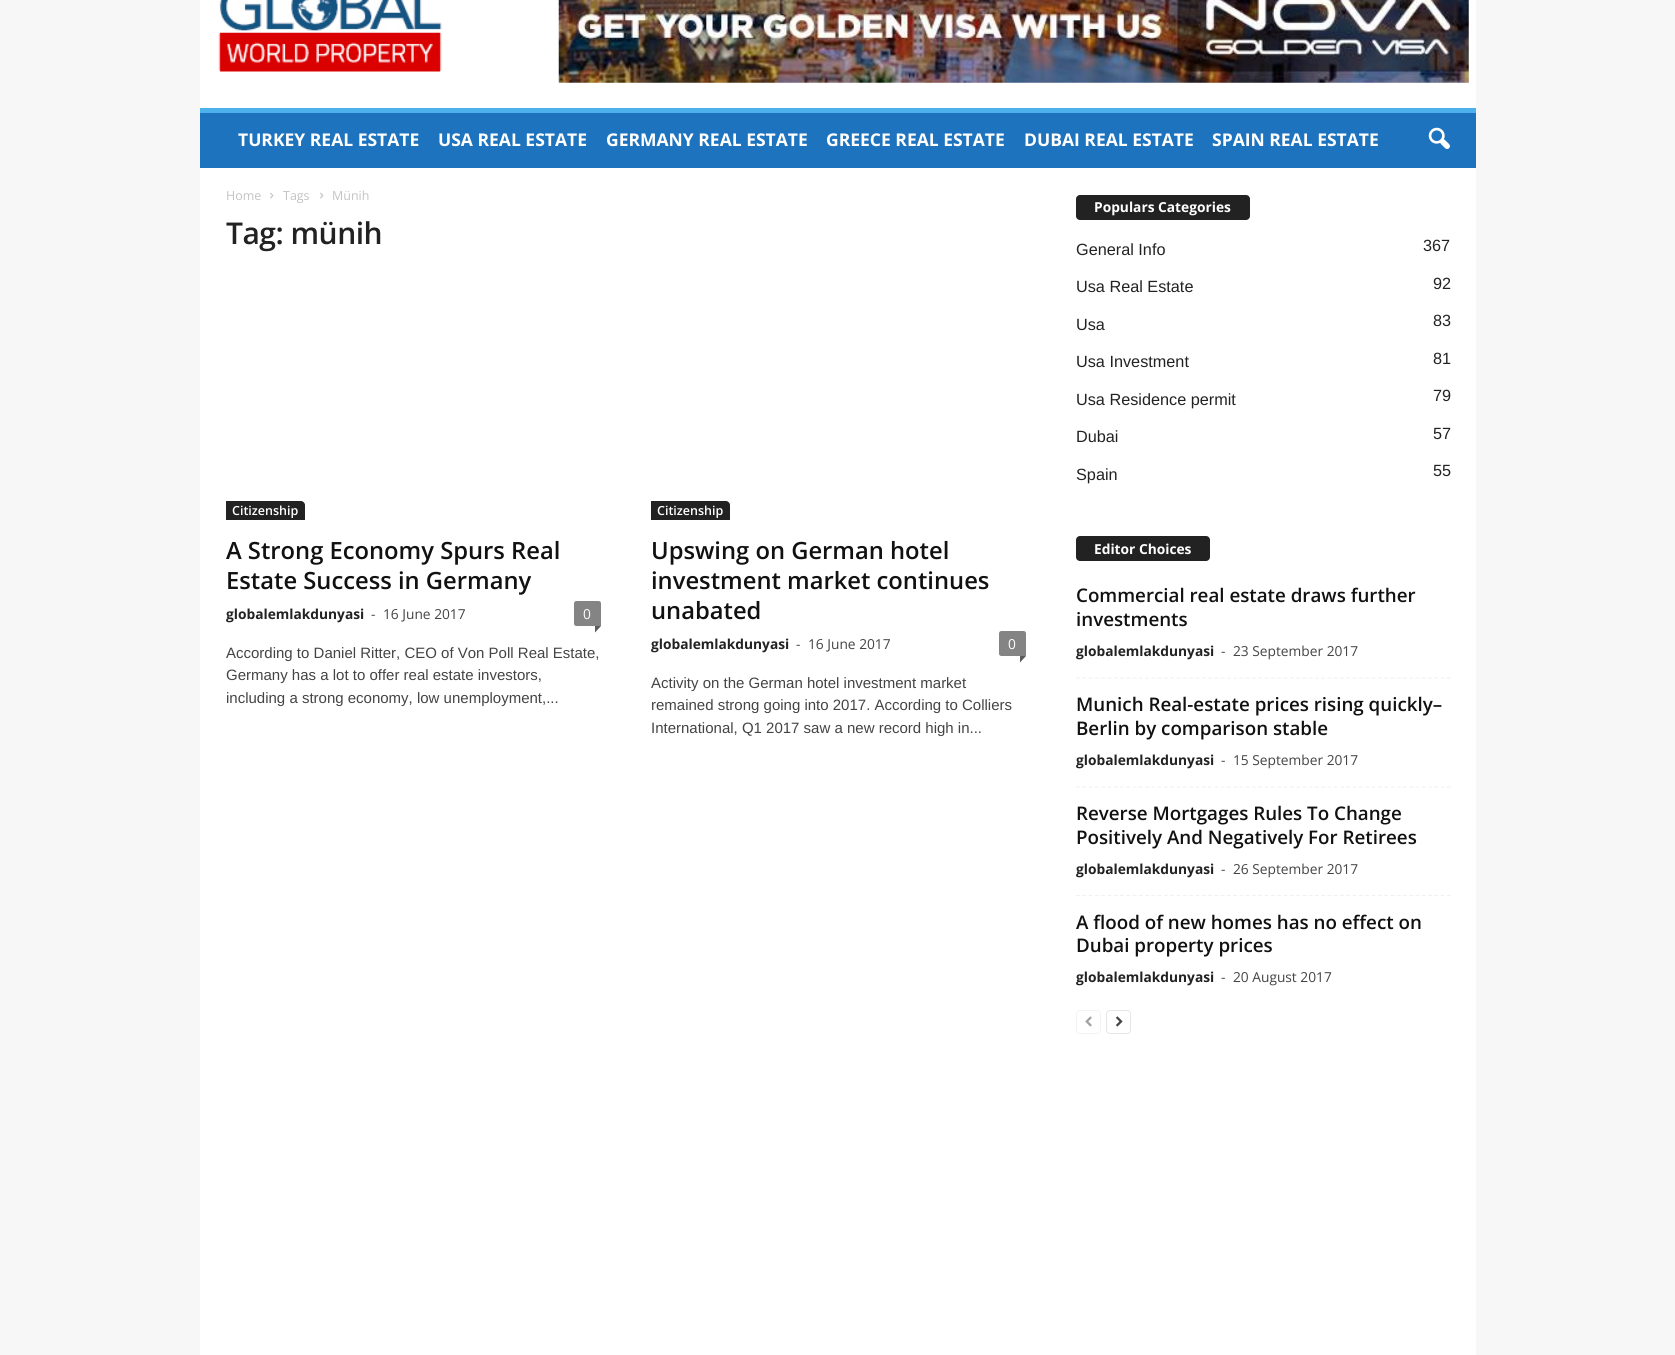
#include <cairo/cairo.h>
#include <math.h>
#include <stddef.h>

static cairo_t *cr;

static void use_color(int r, int g, int b) {
  cairo_set_source_rgb(cr, r / 255.0, g / 255.0, b / 255.0);
}

static void text(double x, double y, const char *s, const char *family, double size, int italic, int bold, int r, int g, int b) {
  cairo_select_font_face(cr, family, italic ? CAIRO_FONT_SLANT_ITALIC : CAIRO_FONT_SLANT_NORMAL,
    bold ? CAIRO_FONT_WEIGHT_BOLD : CAIRO_FONT_WEIGHT_NORMAL);
  cairo_set_font_size(cr, size);
  use_color(r, g, b);
  cairo_move_to(cr, x, y);
  cairo_show_text(cr, s);
}

static void spaced_text(double x, double y, const char *s, double letter, double word) {
  cairo_move_to(cr, x, y);
  while (*s) {
    char ch[5] = {0};
    int n = 0;
    do ch[n++] = *s++; while ((*s & 0xC0) == 0x80);
    cairo_show_text(cr, ch);
    cairo_rel_move_to(cr, letter + word * (*ch == ' '), 0);
  }
}

static void box(double x, double y, double w, double h, int r, int g, int b) {
  use_color(r, g, b);
  cairo_rectangle(cr, x, y, w, h);
  cairo_fill(cr);
}

static void round_rect(double x, double y, double w, double h, double r) {
  cairo_new_sub_path(cr);
  cairo_arc(cr, x + w - r, y + h - r, r, 0, M_PI / 2);
  cairo_arc(cr, x + r, y + h - r, r, M_PI / 2, M_PI);
  cairo_arc(cr, x + r, y + r, r, M_PI, 1.5 * M_PI);
  cairo_arc(cr, x + w - r, y + r, r, 1.5 * M_PI, 2 * M_PI);
  cairo_close_path(cr);
}

static void picture(const char *path, double x, double y, double w, double h) {
  cairo_surface_t *image = cairo_image_surface_create_from_png(path);
  cairo_save(cr);
  cairo_set_source_surface(cr, image, x, y);
  cairo_rectangle(cr, x, y, w, h);
  cairo_fill(cr);
  cairo_restore(cr);
  cairo_surface_destroy(image);
}

static void draw(void) {
  use_color(247, 247, 247);
  cairo_paint(cr);
  box(200, 0, 1276, 108, 255, 255, 255);
  picture("img_01.png", 218, 0, 224, 72);
  picture("img_02.png", 558, 0, 911, 83);
  box(200, 113, 1276, 55, 30, 115, 190);
  box(200, 108, 1276, 5, 77, 178, 236);
  picture("img_03.png", 1428, 127, 22, 22);
  box(200, 168, 1276, 1187, 255, 255, 255);
  picture("img_04.png", 270, 192, 4, 7);
  picture("img_04.png", 320, 192, 4, 7);
  use_color(34, 34, 34);
  cairo_new_path(cr);
  cairo_move_to(cr, 226, 501);
  cairo_line_to(cr, 301, 501);
  cairo_curve_to(cr, 303, 501, 305, 503, 305, 505);
  cairo_line_to(cr, 305, 520);
  cairo_line_to(cr, 226, 520);
  cairo_close_path(cr);
  cairo_fill(cr);
  use_color(132, 132, 132);
  cairo_new_path(cr);
  cairo_move_to(cr, 576.5, 601);
  cairo_line_to(cr, 598.5, 601);
  cairo_curve_to(cr, 600, 601, 601, 602, 601, 603.5);
  cairo_line_to(cr, 601, 626);
  cairo_line_to(cr, 576.5, 626);
  cairo_curve_to(cr, 575, 626, 574, 625, 574, 623.5);
  cairo_line_to(cr, 574, 603.5);
  cairo_curve_to(cr, 574, 602, 575, 601, 576.5, 601);
  cairo_close_path(cr);
  cairo_fill(cr);
  use_color(91, 91, 91);
  cairo_new_path(cr);
  cairo_move_to(cr, 595, 626);
  cairo_line_to(cr, 601, 626);
  cairo_line_to(cr, 595, 632.5);
  cairo_close_path(cr);
  cairo_fill(cr);
  use_color(34, 34, 34);
  cairo_new_path(cr);
  cairo_move_to(cr, 651, 501);
  cairo_line_to(cr, 726, 501);
  cairo_curve_to(cr, 728, 501, 730, 503, 730, 505);
  cairo_line_to(cr, 730, 520);
  cairo_line_to(cr, 651, 520);
  cairo_close_path(cr);
  cairo_fill(cr);
  use_color(132, 132, 132);
  cairo_new_path(cr);
  cairo_move_to(cr, 1001.5, 631);
  cairo_line_to(cr, 1023.5, 631);
  cairo_curve_to(cr, 1025, 631, 1026, 632, 1026, 633.5);
  cairo_line_to(cr, 1026, 656);
  cairo_line_to(cr, 1001.5, 656);
  cairo_curve_to(cr, 1000, 656, 999, 655, 999, 653.5);
  cairo_line_to(cr, 999, 633.5);
  cairo_curve_to(cr, 999, 632, 1000, 631, 1001.5, 631);
  cairo_close_path(cr);
  cairo_fill(cr);
  use_color(91, 91, 91);
  cairo_new_path(cr);
  cairo_move_to(cr, 1020, 656);
  cairo_line_to(cr, 1026, 656);
  cairo_line_to(cr, 1020, 662.5);
  cairo_close_path(cr);
  cairo_fill(cr);
  use_color(34, 34, 34);
  round_rect(1076, 195, 174, 25, 4);
  cairo_fill(cr);
  round_rect(1076, 536, 134, 25, 4);
  cairo_fill(cr);
  cairo_new_path(cr);
  cairo_move_to(cr, 1076, 678);
  cairo_line_to(cr, 1451, 678);
  use_color(241, 241, 241);
  cairo_set_line_width(cr, 1.2);
  cairo_set_dash(cr, (double[]){3.75, 2.54}, 2, 0);
  cairo_stroke(cr);
  cairo_new_path(cr);
  cairo_move_to(cr, 1076, 787);
  cairo_line_to(cr, 1451, 787);
  cairo_stroke(cr);
  cairo_new_path(cr);
  cairo_move_to(cr, 1076, 895.5);
  cairo_line_to(cr, 1451, 895.5);
  cairo_stroke(cr);
  round_rect(1076.5, 1010.5, 24, 23, 3.5);
  use_color(243, 243, 243);
  cairo_set_line_width(cr, 1);
  cairo_set_dash(cr, NULL, 0, 0);
  cairo_stroke(cr);
  picture("img_05.png", 1085, 1016, 7, 11);
  round_rect(1106.5, 1010.5, 24, 23, 3.5);
  use_color(230, 230, 230);
  cairo_stroke(cr);
  picture("img_06.png", 1116, 1016, 7, 11);
  text(238, 146, "TURKEY REAL ESTATE", "Open Sans", 17.5, 0, 1, 255, 255, 255);
  text(438, 146, "USA REAL ESTATE", "Open Sans", 17.5, 0, 1, 255, 255, 255);
  text(606, 146, "GERMANY REAL ESTATE", "Open Sans", 17.5, 0, 1, 255, 255, 255);
  text(826, 146, "GREECE REAL ESTATE", "Open Sans", 17.5, 0, 1, 255, 255, 255);
  text(1024, 146, "DUBAI REAL ESTATE", "Open Sans", 17.5, 0, 1, 255, 255, 255);
  text(1212, 146, "SPAIN REAL ESTATE", "Open Sans", 17.5, 0, 1, 255, 255, 255);
  text(226, 200, "Home", "Open Sans", 12.5, 0, 0, 195, 195, 195);
  text(283, 200, "Tags", "Open Sans", 12.5, 0, 0, 195, 195, 195);
  text(332, 200, "Münih", "Open Sans", 12.5, 0, 0, 195, 195, 195);
  cairo_select_font_face(cr, "Open Sans SemiBold", CAIRO_FONT_SLANT_NORMAL, CAIRO_FONT_WEIGHT_NORMAL);
  cairo_set_font_size(cr, 30);
  use_color(34, 34, 34);
  spaced_text(226, 244, "Tag: münih", -0.5, 0);
  text(232, 515, "Citizenship", "Open Sans SemiBold", 12.5, 0, 0, 255, 255, 255);
  text(226, 559, "A Strong Economy Spurs Real", "Open Sans SemiBold", 23.75, 0, 0, 17, 17, 17);
  text(226, 589, "Estate Success in Germany", "Open Sans SemiBold", 23.75, 0, 0, 17, 17, 17);
  text(226, 619, "globalemlakdunyasi", "Open Sans", 13.75, 0, 1, 34, 34, 34);
  text(371, 619, "-", "Open Sans", 13.75, 0, 0, 68, 68, 68);
  text(383, 619, "16 June 2017", "Open Sans", 13.75, 0, 0, 68, 68, 68);
  text(583, 619, "0", "Open Sans", 13.75, 0, 0, 255, 255, 255);
  text(226, 658, "According to Daniel Ritter, CEO of Von Poll Real Estate,", "Liberation Sans", 15, 0, 0, 68, 68, 68);
  text(226, 680, "Germany has a lot to offer real estate investors,", "Liberation Sans", 15, 0, 0, 68, 68, 68);
  text(226, 703, "including a strong economy, low unemployment,...", "Liberation Sans", 15, 0, 0, 68, 68, 68);
  text(657, 515, "Citizenship", "Open Sans SemiBold", 12.5, 0, 0, 255, 255, 255);
  text(651, 559, "Upswing on German hotel", "Open Sans SemiBold", 23.75, 0, 0, 17, 17, 17);
  text(651, 589, "investment market continues", "Open Sans SemiBold", 23.75, 0, 0, 17, 17, 17);
  text(651, 619, "unabated", "Open Sans SemiBold", 23.75, 0, 0, 17, 17, 17);
  text(651, 649, "globalemlakdunyasi", "Open Sans", 13.75, 0, 1, 34, 34, 34);
  text(796, 649, "-", "Open Sans", 13.75, 0, 0, 68, 68, 68);
  text(808, 649, "16 June 2017", "Open Sans", 13.75, 0, 0, 68, 68, 68);
  text(1008, 649, "0", "Open Sans", 13.75, 0, 0, 255, 255, 255);
  text(651, 688, "Activity on the German hotel investment market", "Liberation Sans", 15, 0, 0, 68, 68, 68);
  text(651, 710, "remained strong going into 2017. According to Colliers", "Liberation Sans", 15, 0, 0, 68, 68, 68);
  text(651, 733, "International, Q1 2017 saw a new record high in...", "Liberation Sans", 15, 0, 0, 68, 68, 68);
  text(1094, 212, "Populars Categories", "Open Sans", 13.75, 0, 1, 255, 255, 255);
  text(1076, 255, "General Info", "Liberation Sans", 16.25, 0, 0, 34, 34, 34);
  text(1423, 251, "367", "Liberation Sans", 16.25, 0, 0, 34, 34, 34);
  text(1076, 292, "Usa Real Estate", "Liberation Sans", 16.25, 0, 0, 34, 34, 34);
  text(1433, 289, "92", "Liberation Sans", 16.25, 0, 0, 34, 34, 34);
  text(1076, 330, "Usa", "Liberation Sans", 16.25, 0, 0, 34, 34, 34);
  text(1433, 326, "83", "Liberation Sans", 16.25, 0, 0, 34, 34, 34);
  text(1076, 367, "Usa Investment", "Liberation Sans", 16.25, 0, 0, 34, 34, 34);
  text(1433, 364, "81", "Liberation Sans", 16.25, 0, 0, 34, 34, 34);
  text(1076, 405, "Usa Residence permit", "Liberation Sans", 16.25, 0, 0, 34, 34, 34);
  text(1433, 401, "79", "Liberation Sans", 16.25, 0, 0, 34, 34, 34);
  text(1076, 442, "Dubai", "Liberation Sans", 16.25, 0, 0, 34, 34, 34);
  text(1433, 439, "57", "Liberation Sans", 16.25, 0, 0, 34, 34, 34);
  text(1076, 480, "Spain", "Liberation Sans", 16.25, 0, 0, 34, 34, 34);
  text(1433, 476, "55", "Liberation Sans", 16.25, 0, 0, 34, 34, 34);
  text(1094, 554, "Editor Choices", "Open Sans", 13.75, 0, 1, 255, 255, 255);
  text(1076, 602, "Commercial real estate draws further", "Open Sans SemiBold", 18.75, 0, 0, 17, 17, 17);
  text(1076, 626, "investments", "Open Sans SemiBold", 18.75, 0, 0, 17, 17, 17);
  text(1076, 656, "globalemlakdunyasi", "Open Sans", 13.75, 0, 1, 34, 34, 34);
  text(1221, 656, "-", "Open Sans", 13.75, 0, 0, 68, 68, 68);
  text(1233, 656, "23 September 2017", "Open Sans", 13.75, 0, 0, 68, 68, 68);
  text(1076, 711, "Munich Real-estate prices rising quickly–", "Open Sans SemiBold", 18.75, 0, 0, 17, 17, 17);
  text(1076, 735, "Berlin by comparison stable", "Open Sans SemiBold", 18.75, 0, 0, 17, 17, 17);
  text(1076, 765, "globalemlakdunyasi", "Open Sans", 13.75, 0, 1, 34, 34, 34);
  text(1221, 765, "-", "Open Sans", 13.75, 0, 0, 68, 68, 68);
  text(1233, 765, "15 September 2017", "Open Sans", 13.75, 0, 0, 68, 68, 68);
  text(1076, 820, "Reverse Mortgages Rules To Change", "Open Sans SemiBold", 18.75, 0, 0, 17, 17, 17);
  text(1076, 844, "Positively And Negatively For Retirees", "Open Sans SemiBold", 18.75, 0, 0, 17, 17, 17);
  text(1076, 874, "globalemlakdunyasi", "Open Sans", 13.75, 0, 1, 34, 34, 34);
  text(1221, 874, "-", "Open Sans", 13.75, 0, 0, 68, 68, 68);
  text(1233, 874, "26 September 2017", "Open Sans", 13.75, 0, 0, 68, 68, 68);
  text(1076, 929, "A flood of new homes has no effect on", "Open Sans SemiBold", 18.75, 0, 0, 17, 17, 17);
  text(1076, 952, "Dubai property prices", "Open Sans SemiBold", 18.75, 0, 0, 17, 17, 17);
  text(1076, 982, "globalemlakdunyasi", "Open Sans", 13.75, 0, 1, 34, 34, 34);
  text(1221, 982, "-", "Open Sans", 13.75, 0, 0, 68, 68, 68);
  text(1233, 982, "20 August 2017", "Open Sans", 13.75, 0, 0, 68, 68, 68);
}

int main(void) {
  cairo_surface_t *surface = cairo_image_surface_create(CAIRO_FORMAT_RGB24, 1675, 1355);
  cr = cairo_create(surface);
  cairo_font_options_t *options = cairo_font_options_create();
  cairo_font_options_set_hint_metrics(options, CAIRO_HINT_METRICS_OFF);
  cairo_font_options_set_hint_style(options, CAIRO_HINT_STYLE_NONE);
  cairo_set_font_options(cr, options);
  cairo_set_miter_limit(cr, 4);
  draw();
  cairo_surface_write_to_png(surface, "out.png");
  cairo_font_options_destroy(options);
  cairo_destroy(cr);
  cairo_surface_destroy(surface);
  return 0;
}
